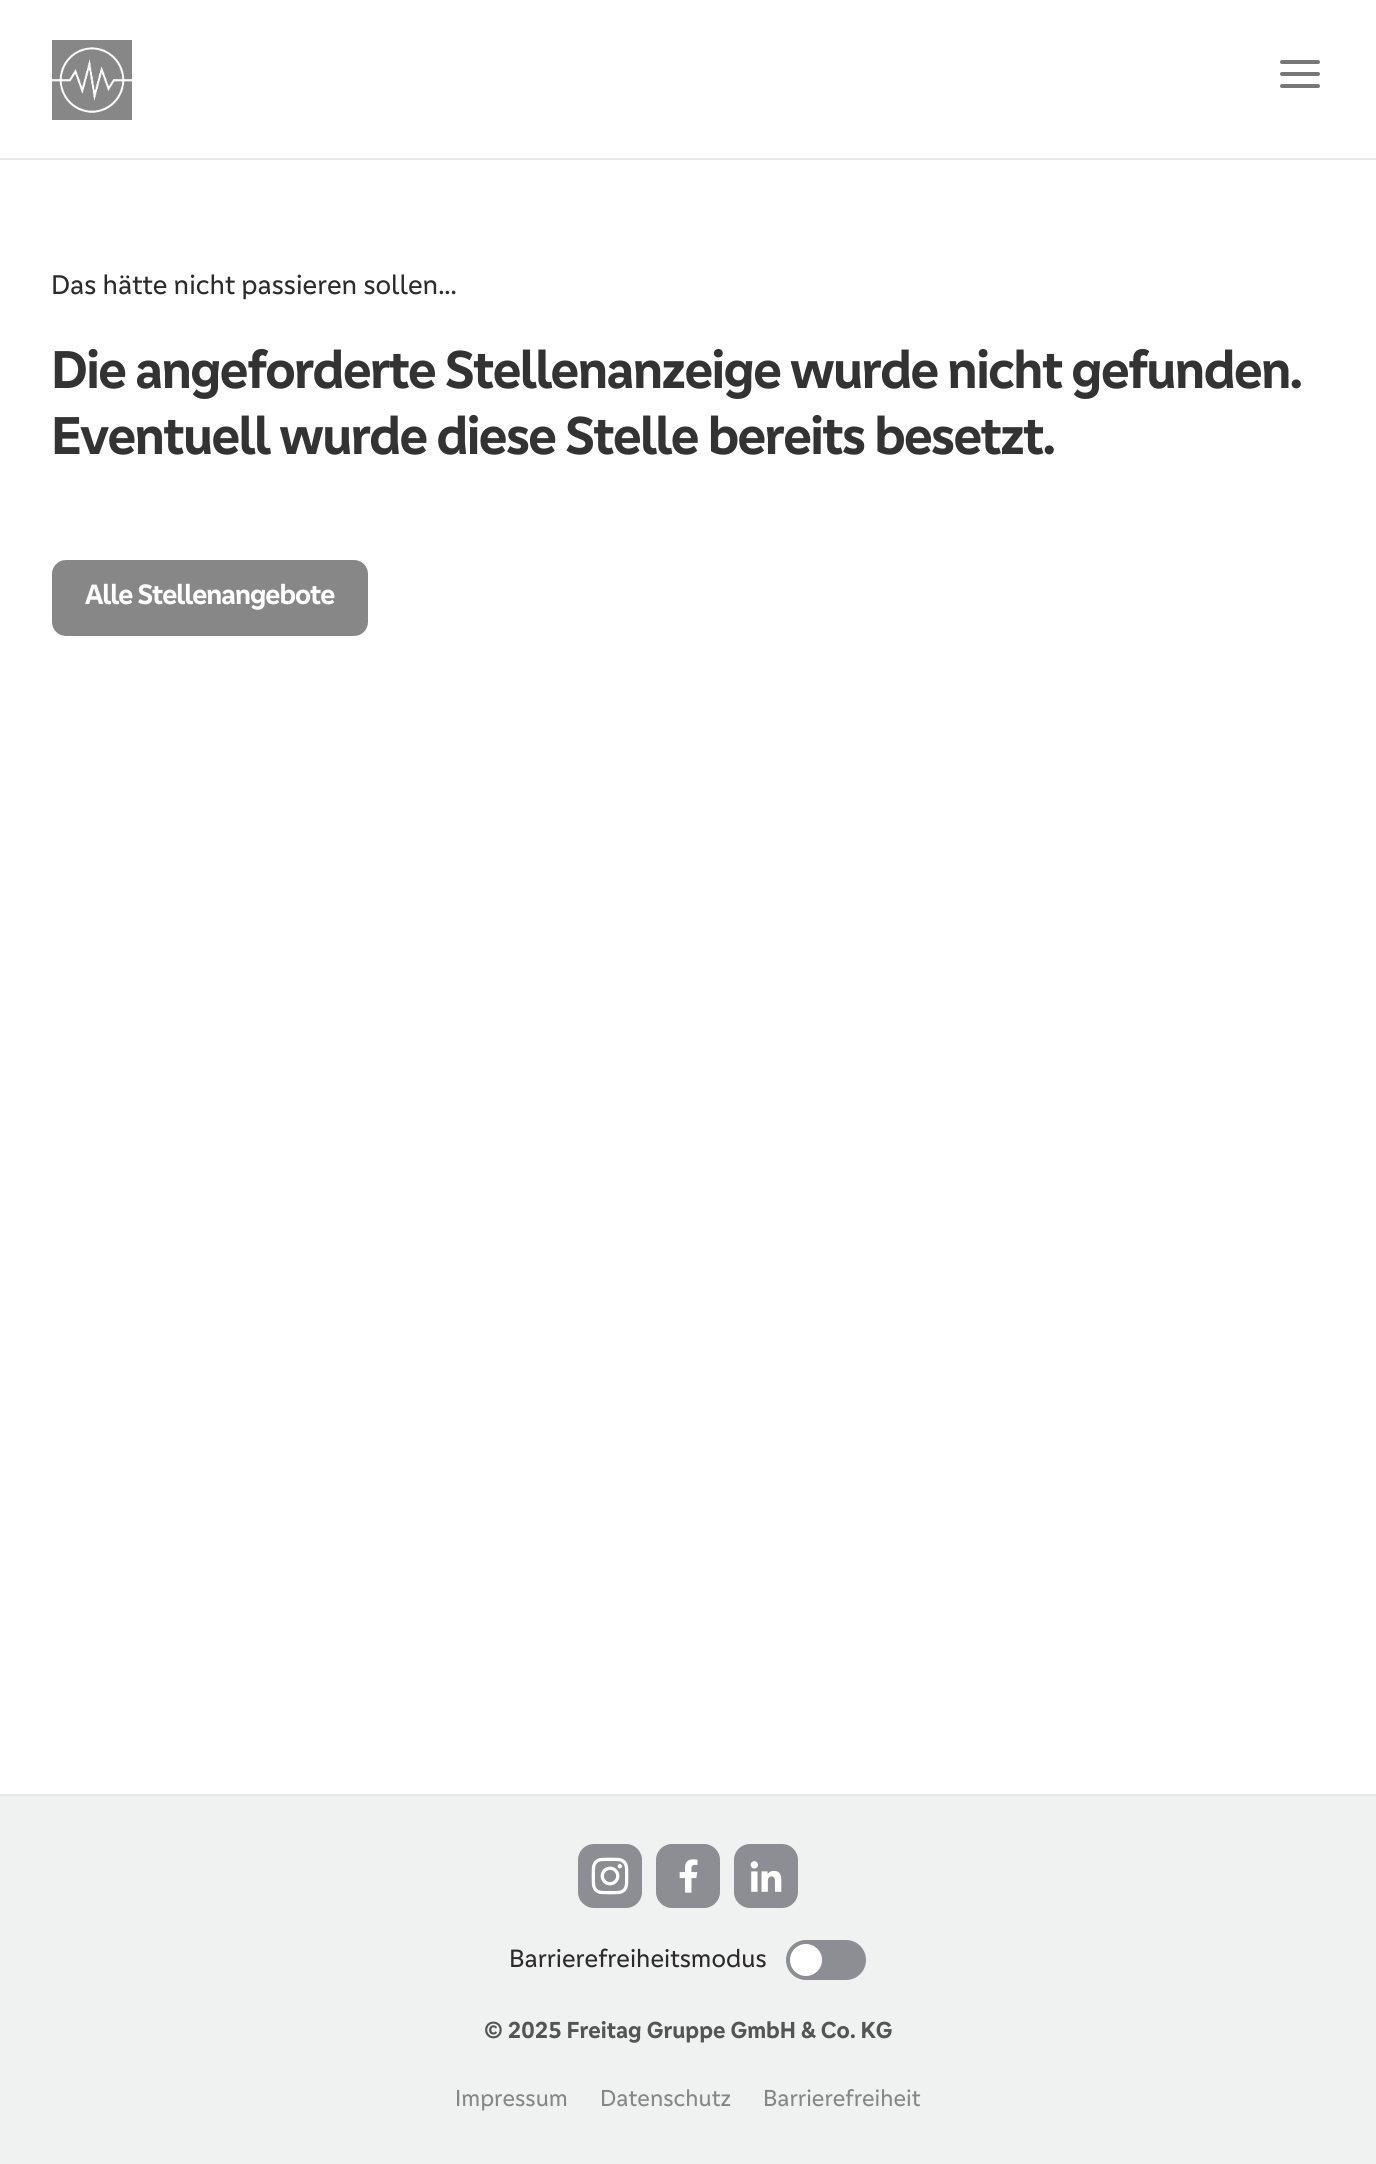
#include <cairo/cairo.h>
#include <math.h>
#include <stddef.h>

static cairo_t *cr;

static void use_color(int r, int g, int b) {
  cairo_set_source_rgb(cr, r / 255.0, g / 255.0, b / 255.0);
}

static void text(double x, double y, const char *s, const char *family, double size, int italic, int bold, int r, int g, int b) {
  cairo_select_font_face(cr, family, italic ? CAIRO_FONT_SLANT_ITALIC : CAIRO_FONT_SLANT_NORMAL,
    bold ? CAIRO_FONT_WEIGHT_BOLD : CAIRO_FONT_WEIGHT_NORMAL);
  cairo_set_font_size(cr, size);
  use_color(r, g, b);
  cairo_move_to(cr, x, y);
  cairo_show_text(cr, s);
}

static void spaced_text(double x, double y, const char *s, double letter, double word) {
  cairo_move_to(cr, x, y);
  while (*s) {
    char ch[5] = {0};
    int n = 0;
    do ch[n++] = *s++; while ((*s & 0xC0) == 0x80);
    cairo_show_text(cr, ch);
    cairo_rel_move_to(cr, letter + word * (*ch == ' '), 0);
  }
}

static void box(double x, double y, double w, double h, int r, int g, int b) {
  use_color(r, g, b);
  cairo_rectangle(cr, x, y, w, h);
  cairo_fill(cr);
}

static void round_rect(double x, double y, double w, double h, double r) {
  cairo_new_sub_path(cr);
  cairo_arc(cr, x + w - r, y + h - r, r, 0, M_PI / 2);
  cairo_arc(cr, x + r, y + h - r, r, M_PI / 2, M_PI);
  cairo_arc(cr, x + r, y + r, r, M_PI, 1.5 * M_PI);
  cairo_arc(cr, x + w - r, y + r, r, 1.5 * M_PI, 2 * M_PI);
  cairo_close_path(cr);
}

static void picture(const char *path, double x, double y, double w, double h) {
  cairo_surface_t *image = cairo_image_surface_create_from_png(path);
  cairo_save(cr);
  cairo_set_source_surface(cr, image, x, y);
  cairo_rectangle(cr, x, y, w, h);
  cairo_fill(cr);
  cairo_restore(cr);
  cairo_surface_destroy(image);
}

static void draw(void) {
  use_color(255, 255, 255);
  cairo_paint(cr);
  box(0, 158, 1376, 2, 230, 231, 235);
  picture("img_01.png", 52, 40, 80, 80);
  picture("img_02.png", 1280, 60, 40, 28);
  use_color(135, 135, 135);
  round_rect(53, 561, 314, 74, 13);
  cairo_fill_preserve(cr);
  cairo_stroke(cr);
  box(0, 1794, 1376, 2, 230, 231, 235);
  box(0, 1796, 1376, 368, 240, 242, 242);
  use_color(141, 141, 148);
  round_rect(578, 1844, 64, 64, 16);
  cairo_fill(cr);
  picture("img_03.png", 591, 1857, 38, 38);
  round_rect(656, 1844, 64, 64, 16);
  cairo_fill(cr);
  picture("img_04.png", 679, 1859, 19, 34);
  round_rect(734, 1844, 64, 64, 16);
  cairo_fill(cr);
  picture("img_05.png", 750, 1861, 32, 31);
  round_rect(786, 1940, 80, 40, 20);
  cairo_fill(cr);
  use_color(255, 255, 255);
  cairo_arc(cr, 806, 1960, 16, 0, 2 * M_PI);
  cairo_fill(cr);
  text(51, 294, "Das hätte nicht passieren sollen...", "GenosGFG", 28, 0, 0, 44, 42, 42);
  cairo_select_font_face(cr, "GenosGFG", CAIRO_FONT_SLANT_NORMAL, CAIRO_FONT_WEIGHT_BOLD);
  cairo_set_font_size(cr, 55.1);
  use_color(51, 51, 51);
  spaced_text(51, 388, "Die angeforderte Stellenanzeige wurde nicht gefunden.", -1.6, 0);
  spaced_text(51, 454, "Eventuell wurde diese Stelle bereits besetzt.", -1.6, 0);
  cairo_set_font_size(cr, 29);
  use_color(255, 255, 255);
  spaced_text(85, 604, "Alle Stellenangebote", -1, 0);
  text(509, 1967, "Barrierefreiheitsmodus", "GenosGFG", 26, 0, 0, 44, 42, 42);
  text(484, 2038, "© 2025 Freitag Gruppe GmbH & Co. KG", "GenosGFG", 24, 0, 1, 84, 84, 84);
  text(455, 2106, "Impressum", "GenosGFG", 24, 0, 0, 134, 134, 134);
  text(600, 2106, "Datenschutz", "GenosGFG", 24, 0, 0, 134, 134, 134);
  text(763, 2106, "Barrierefreiheit", "GenosGFG", 24, 0, 0, 134, 134, 134);
}

int main(void) {
  cairo_surface_t *surface = cairo_image_surface_create(CAIRO_FORMAT_RGB24, 1376, 2164);
  cr = cairo_create(surface);
  cairo_font_options_t *options = cairo_font_options_create();
  cairo_font_options_set_hint_metrics(options, CAIRO_HINT_METRICS_OFF);
  cairo_font_options_set_hint_style(options, CAIRO_HINT_STYLE_NONE);
  cairo_set_font_options(cr, options);
  cairo_set_miter_limit(cr, 4);
  draw();
  cairo_surface_write_to_png(surface, "out.png");
  cairo_font_options_destroy(options);
  cairo_destroy(cr);
  cairo_surface_destroy(surface);
  return 0;
}
